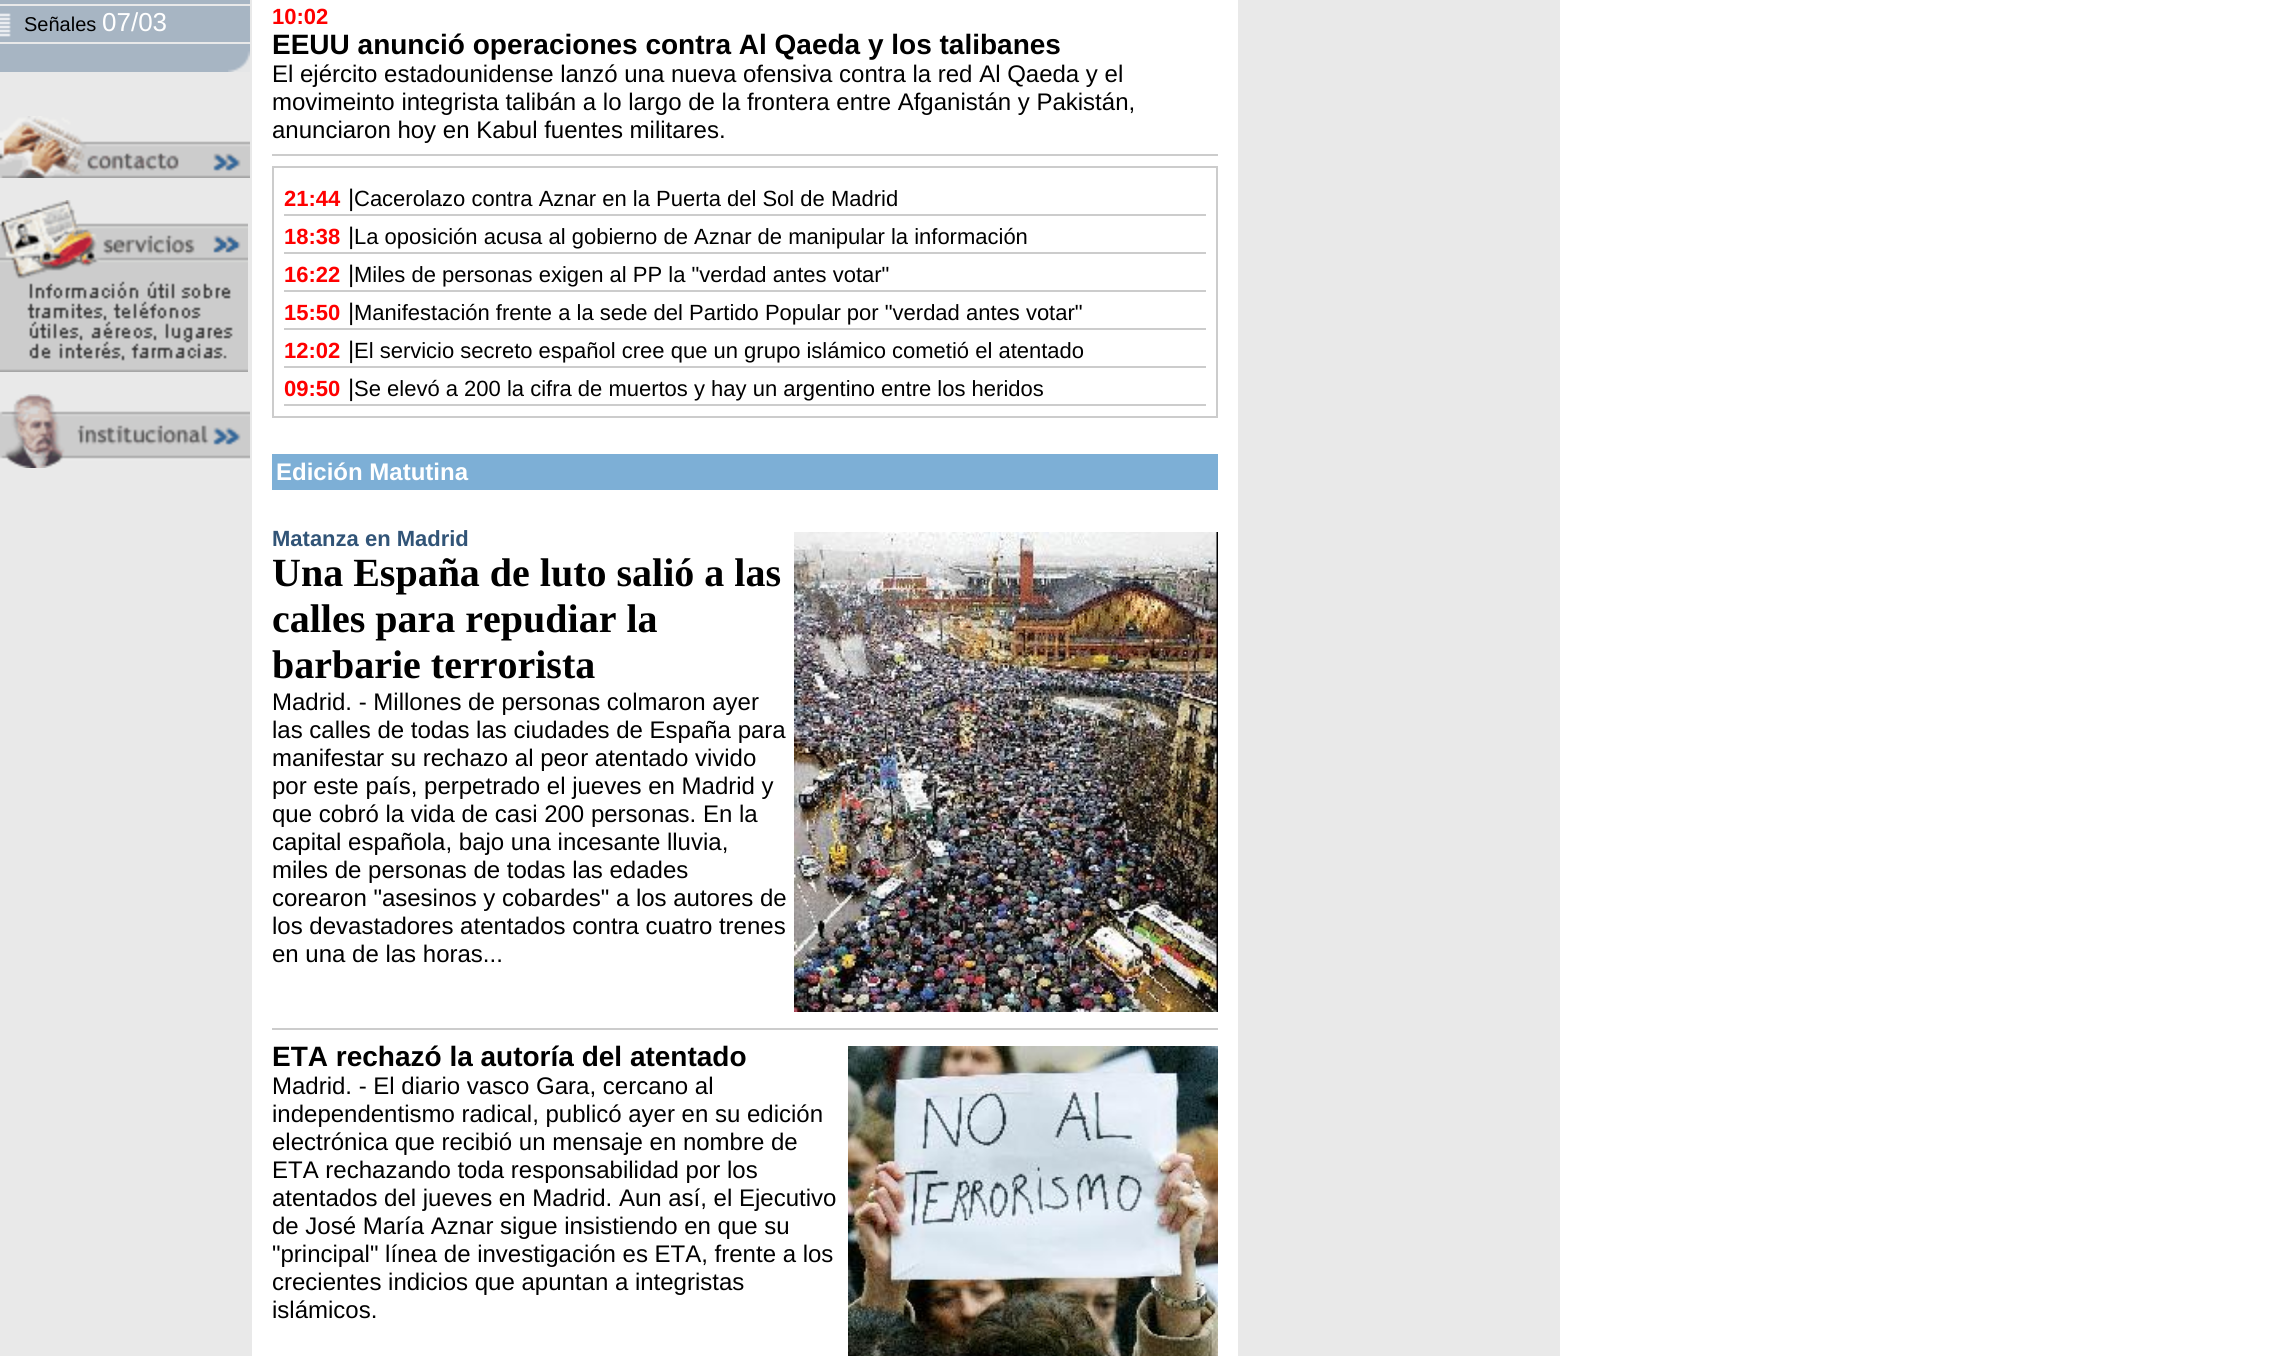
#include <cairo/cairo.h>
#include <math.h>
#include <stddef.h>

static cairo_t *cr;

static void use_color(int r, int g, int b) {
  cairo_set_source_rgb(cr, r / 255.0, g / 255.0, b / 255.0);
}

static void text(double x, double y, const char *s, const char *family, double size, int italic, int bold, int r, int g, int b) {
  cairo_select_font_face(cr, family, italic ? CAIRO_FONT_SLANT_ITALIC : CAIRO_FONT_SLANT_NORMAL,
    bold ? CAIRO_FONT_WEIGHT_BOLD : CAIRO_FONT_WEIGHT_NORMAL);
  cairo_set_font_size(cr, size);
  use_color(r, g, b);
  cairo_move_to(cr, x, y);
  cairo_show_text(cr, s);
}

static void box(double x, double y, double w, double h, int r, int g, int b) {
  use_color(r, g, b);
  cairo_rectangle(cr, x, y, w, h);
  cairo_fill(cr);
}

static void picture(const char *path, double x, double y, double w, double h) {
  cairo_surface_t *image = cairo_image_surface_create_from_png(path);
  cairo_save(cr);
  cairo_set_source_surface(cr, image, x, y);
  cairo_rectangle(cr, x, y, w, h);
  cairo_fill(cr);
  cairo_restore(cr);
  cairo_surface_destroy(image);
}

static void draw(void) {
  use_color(255, 255, 255);
  cairo_paint(cr);
  box(0, 0, 252, 1356, 233, 233, 233);
  box(0, 0, 250, 72, 167, 181, 195);
  box(0, 4, 250, 2, 233, 233, 233);
  picture("img_01.png", 0, 13, 11, 24);
  box(0, 42, 250, 2, 233, 233, 233);
  picture("img_02.png", 228, 51, 22, 21);
  picture("img_03.png", 0, 116, 250, 62);
  picture("img_04.png", 0, 200, 248, 172);
  picture("img_05.png", 0, 394, 250, 74);
  box(272, 154, 946, 2, 204, 204, 204);
  box(272, 166, 946, 252, 204, 204, 204);
  box(274, 168, 942, 248, 255, 255, 255);
  box(284, 214, 922, 2, 204, 204, 204);
  box(284, 252, 922, 2, 204, 204, 204);
  box(284, 290, 922, 2, 204, 204, 204);
  box(284, 328, 922, 2, 204, 204, 204);
  box(284, 366, 922, 2, 204, 204, 204);
  box(284, 404, 922, 2, 204, 204, 204);
  box(272, 454, 946, 36, 125, 175, 214);
  picture("img_06.png", 794, 532, 424, 480);
  box(272, 1028, 946, 2, 204, 204, 204);
  picture("img_07.png", 848, 1046, 370, 310);
  box(1238, 0, 322, 1356, 233, 233, 233);
  text(24, 31, "Señales", "Liberation Sans", 20, 0, 0, 0, 0, 0);
  text(102, 31, "07/03", "Liberation Sans", 26, 0, 0, 255, 255, 255);
  text(272, 24, "10:02", "Liberation Sans", 22, 0, 1, 255, 0, 0);
  text(272, 54, "EEUU anunció operaciones contra Al Qaeda y los talibanes", "Liberation Sans", 28, 0, 1, 0, 0, 0);
  text(272, 82, "El ejército estadounidense lanzó una nueva ofensiva contra la red Al Qaeda y el", "Liberation Sans", 24, 0, 0, 0, 0, 0);
  text(272, 110, "movimeinto integrista talibán a lo largo de la frontera entre Afganistán y Pakistán,", "Liberation Sans", 24, 0, 0, 0, 0, 0);
  text(272, 138, "anunciaron hoy en Kabul fuentes militares.", "Liberation Sans", 24, 0, 0, 0, 0, 0);
  text(284, 206, "21:44", "Liberation Sans", 22, 0, 1, 255, 0, 0);
  text(348, 206, "|", "Liberation Sans", 24, 0, 0, 0, 0, 0);
  text(354, 206, "Cacerolazo contra Aznar en la Puerta del Sol de Madrid", "Liberation Sans", 22, 0, 0, 0, 0, 0);
  text(284, 244, "18:38", "Liberation Sans", 22, 0, 1, 255, 0, 0);
  text(348, 244, "|", "Liberation Sans", 24, 0, 0, 0, 0, 0);
  text(354, 244, "La oposición acusa al gobierno de Aznar de manipular la información", "Liberation Sans", 22, 0, 0, 0, 0, 0);
  text(284, 282, "16:22", "Liberation Sans", 22, 0, 1, 255, 0, 0);
  text(348, 282, "|", "Liberation Sans", 24, 0, 0, 0, 0, 0);
  text(354, 282, "Miles de personas exigen al PP la \"verdad antes votar\"", "Liberation Sans", 22, 0, 0, 0, 0, 0);
  text(284, 320, "15:50", "Liberation Sans", 22, 0, 1, 255, 0, 0);
  text(348, 320, "|", "Liberation Sans", 24, 0, 0, 0, 0, 0);
  text(354, 320, "Manifestación frente a la sede del Partido Popular por \"verdad antes votar\"", "Liberation Sans", 22, 0, 0, 0, 0, 0);
  text(284, 358, "12:02", "Liberation Sans", 22, 0, 1, 255, 0, 0);
  text(348, 358, "|", "Liberation Sans", 24, 0, 0, 0, 0, 0);
  text(354, 358, "El servicio secreto español cree que un grupo islámico cometió el atentado", "Liberation Sans", 22, 0, 0, 0, 0, 0);
  text(284, 396, "09:50", "Liberation Sans", 22, 0, 1, 255, 0, 0);
  text(348, 396, "|", "Liberation Sans", 24, 0, 0, 0, 0, 0);
  text(354, 396, "Se elevó a 200 la cifra de muertos y hay un argentino entre los heridos", "Liberation Sans", 22, 0, 0, 0, 0, 0);
  text(276, 480, "Edición Matutina", "Liberation Sans", 24, 0, 1, 255, 255, 255);
  text(272, 546, "Matanza en Madrid", "Liberation Sans", 22, 0, 1, 49, 84, 119);
  text(272, 586, "Una España de luto salió a las", "Liberation Serif", 40, 0, 1, 0, 0, 0);
  text(272, 632, "calles para repudiar la", "Liberation Serif", 40, 0, 1, 0, 0, 0);
  text(272, 678, "barbarie terrorista", "Liberation Serif", 40, 0, 1, 0, 0, 0);
  text(272, 710, "Madrid. - Millones de personas colmaron ayer", "Liberation Sans", 24, 0, 0, 0, 0, 0);
  text(272, 738, "las calles de todas las ciudades de España para", "Liberation Sans", 24, 0, 0, 0, 0, 0);
  text(272, 766, "manifestar su rechazo al peor atentado vivido", "Liberation Sans", 24, 0, 0, 0, 0, 0);
  text(272, 794, "por este país, perpetrado el jueves en Madrid y", "Liberation Sans", 24, 0, 0, 0, 0, 0);
  text(272, 822, "que cobró la vida de casi 200 personas. En la", "Liberation Sans", 24, 0, 0, 0, 0, 0);
  text(272, 850, "capital española, bajo una incesante lluvia,", "Liberation Sans", 24, 0, 0, 0, 0, 0);
  text(272, 878, "miles de personas de todas las edades", "Liberation Sans", 24, 0, 0, 0, 0, 0);
  text(272, 906, "corearon \"asesinos y cobardes\" a los autores de", "Liberation Sans", 24, 0, 0, 0, 0, 0);
  text(272, 934, "los devastadores atentados contra cuatro trenes", "Liberation Sans", 24, 0, 0, 0, 0, 0);
  text(272, 962, "en una de las horas...", "Liberation Sans", 24, 0, 0, 0, 0, 0);
  text(272, 1066, "ETA rechazó la autoría del atentado", "Liberation Sans", 28, 0, 1, 0, 0, 0);
  text(272, 1094, "Madrid. - El diario vasco Gara, cercano al", "Liberation Sans", 24, 0, 0, 0, 0, 0);
  text(272, 1122, "independentismo radical, publicó ayer en su edición", "Liberation Sans", 24, 0, 0, 0, 0, 0);
  text(272, 1150, "electrónica que recibió un mensaje en nombre de", "Liberation Sans", 24, 0, 0, 0, 0, 0);
  text(272, 1178, "ETA rechazando toda responsabilidad por los", "Liberation Sans", 24, 0, 0, 0, 0, 0);
  text(272, 1206, "atentados del jueves en Madrid. Aun así, el Ejecutivo", "Liberation Sans", 24, 0, 0, 0, 0, 0);
  text(272, 1234, "de José María Aznar sigue insistiendo en que su", "Liberation Sans", 24, 0, 0, 0, 0, 0);
  text(272, 1262, "\"principal\" línea de investigación es ETA, frente a los", "Liberation Sans", 24, 0, 0, 0, 0, 0);
  text(272, 1290, "crecientes indicios que apuntan a integristas", "Liberation Sans", 24, 0, 0, 0, 0, 0);
  text(272, 1318, "islámicos.", "Liberation Sans", 24, 0, 0, 0, 0, 0);
}

int main(void) {
  cairo_surface_t *surface = cairo_image_surface_create(CAIRO_FORMAT_RGB24, 2288, 1356);
  cr = cairo_create(surface);
  cairo_font_options_t *options = cairo_font_options_create();
  cairo_font_options_set_hint_metrics(options, CAIRO_HINT_METRICS_OFF);
  cairo_font_options_set_hint_style(options, CAIRO_HINT_STYLE_NONE);
  cairo_set_font_options(cr, options);
  cairo_set_miter_limit(cr, 4);
  draw();
  cairo_surface_write_to_png(surface, "out.png");
  cairo_font_options_destroy(options);
  cairo_destroy(cr);
  cairo_surface_destroy(surface);
  return 0;
}
